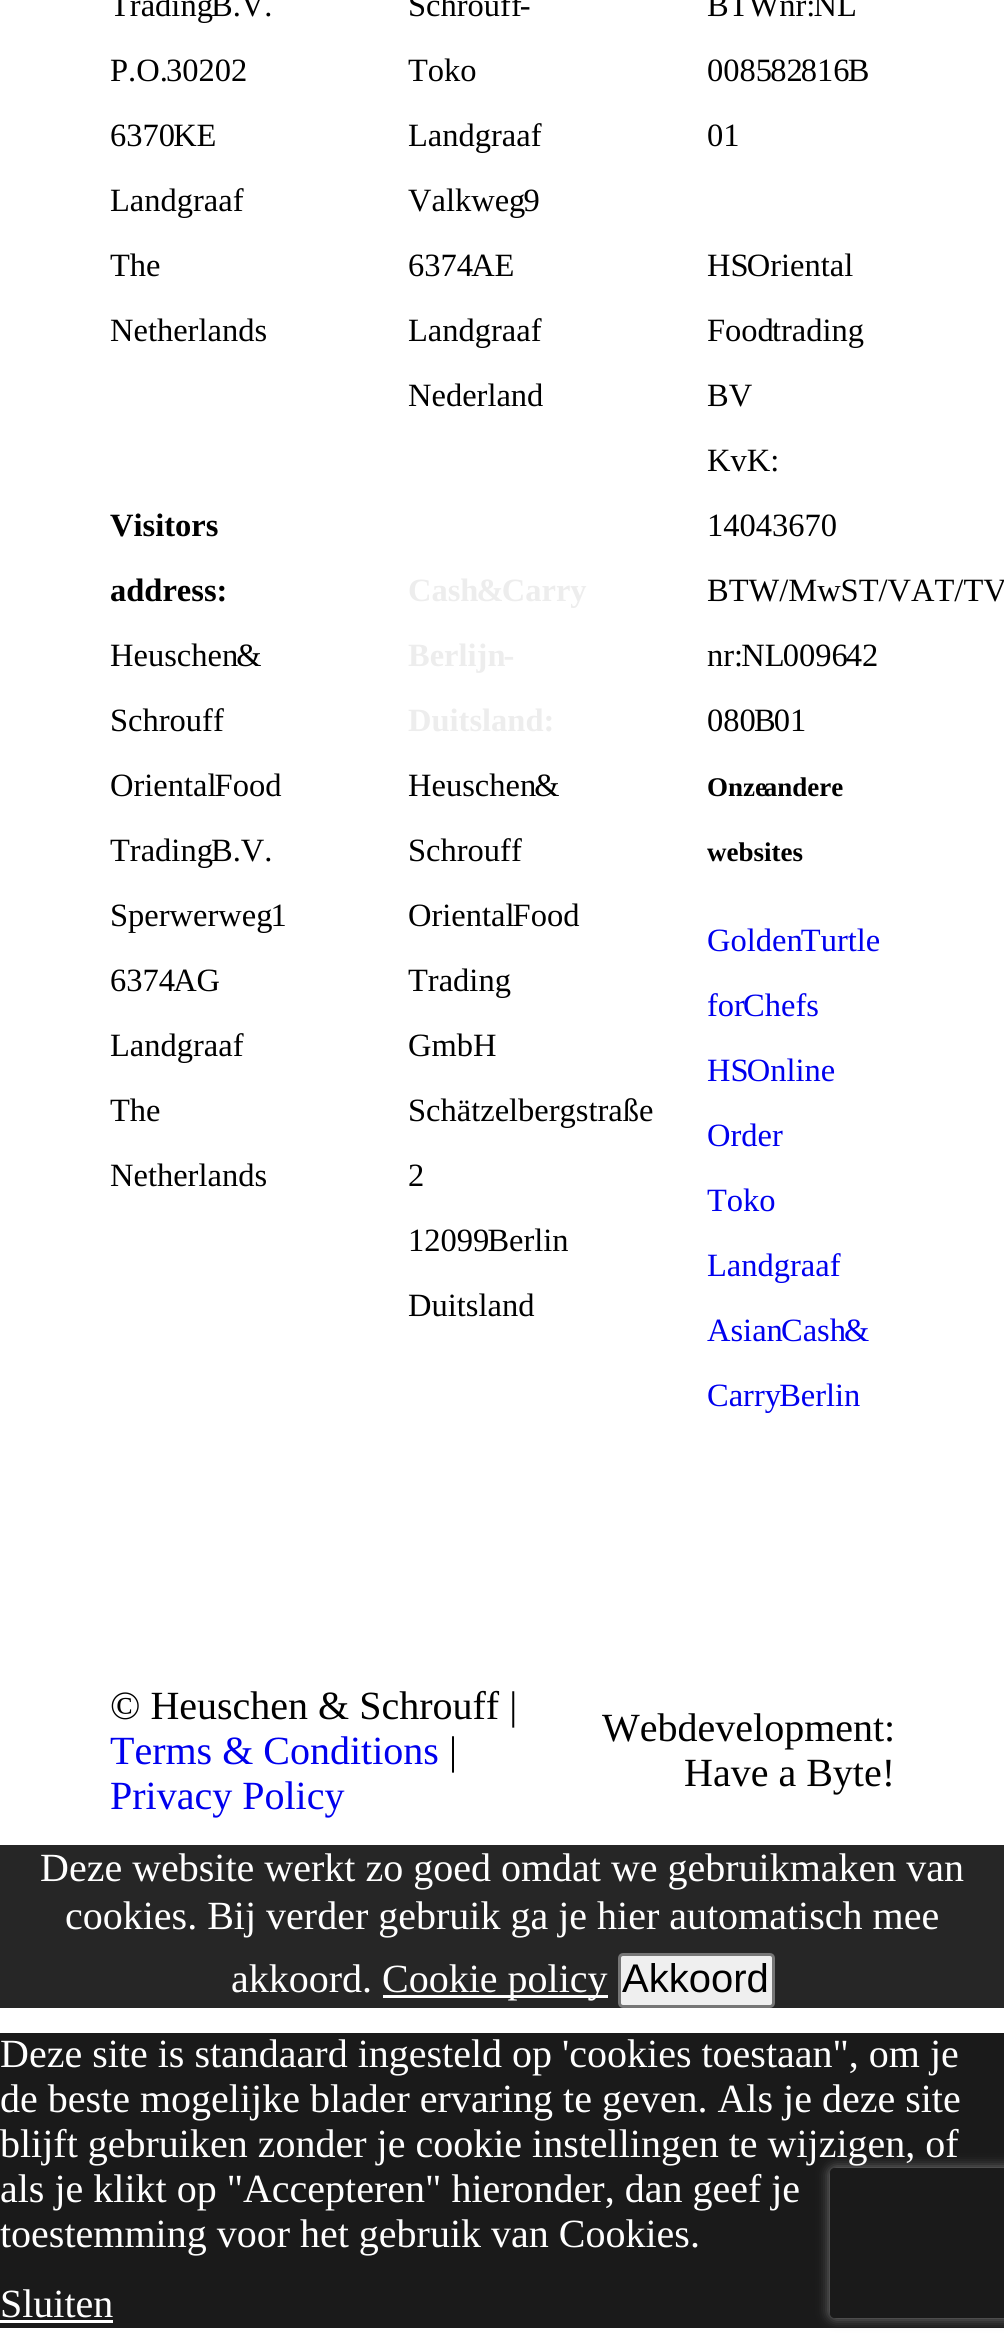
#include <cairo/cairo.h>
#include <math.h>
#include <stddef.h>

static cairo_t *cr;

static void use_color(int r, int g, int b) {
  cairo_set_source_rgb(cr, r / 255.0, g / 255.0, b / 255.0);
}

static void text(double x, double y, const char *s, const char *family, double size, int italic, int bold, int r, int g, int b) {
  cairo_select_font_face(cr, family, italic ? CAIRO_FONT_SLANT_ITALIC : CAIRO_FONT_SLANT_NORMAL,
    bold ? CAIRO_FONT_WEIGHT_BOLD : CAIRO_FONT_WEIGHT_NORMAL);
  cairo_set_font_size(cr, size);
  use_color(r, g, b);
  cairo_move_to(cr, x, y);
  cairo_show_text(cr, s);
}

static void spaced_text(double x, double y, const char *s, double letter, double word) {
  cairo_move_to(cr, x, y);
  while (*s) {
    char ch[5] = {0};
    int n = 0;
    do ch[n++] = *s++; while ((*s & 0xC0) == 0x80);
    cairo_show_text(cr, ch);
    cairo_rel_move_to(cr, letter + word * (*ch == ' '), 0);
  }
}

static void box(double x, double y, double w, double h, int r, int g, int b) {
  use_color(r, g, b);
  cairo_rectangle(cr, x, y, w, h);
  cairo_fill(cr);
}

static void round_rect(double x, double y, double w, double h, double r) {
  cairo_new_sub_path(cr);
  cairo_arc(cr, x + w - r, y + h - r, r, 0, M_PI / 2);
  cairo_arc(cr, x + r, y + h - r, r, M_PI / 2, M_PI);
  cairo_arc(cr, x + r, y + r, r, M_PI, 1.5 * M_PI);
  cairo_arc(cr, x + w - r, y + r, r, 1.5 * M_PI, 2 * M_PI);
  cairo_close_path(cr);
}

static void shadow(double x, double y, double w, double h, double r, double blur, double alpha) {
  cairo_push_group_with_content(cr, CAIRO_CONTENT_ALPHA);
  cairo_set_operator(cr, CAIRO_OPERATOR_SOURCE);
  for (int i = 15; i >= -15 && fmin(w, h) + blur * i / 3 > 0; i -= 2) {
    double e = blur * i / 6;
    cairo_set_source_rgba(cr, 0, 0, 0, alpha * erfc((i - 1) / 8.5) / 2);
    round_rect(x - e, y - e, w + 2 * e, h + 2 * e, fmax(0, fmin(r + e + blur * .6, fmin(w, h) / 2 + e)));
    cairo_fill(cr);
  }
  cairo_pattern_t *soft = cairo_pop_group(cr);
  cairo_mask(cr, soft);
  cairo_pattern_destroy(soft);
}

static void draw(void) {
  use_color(255, 255, 255);
  cairo_paint(cr);
  box(0, 1845, 1004, 163, 38, 38, 38);
  box(383, 1995, 225, 3, 255, 255, 255);
  use_color(239, 239, 239);
  round_rect(619.5, 1954.5, 154, 52, 3.5);
  cairo_fill_preserve(cr);
  use_color(118, 118, 118);
  cairo_set_line_width(cr, 3);
  cairo_stroke(cr);
  box(0, 2033, 1004, 295, 26, 26, 26);
  box(0, 2320, 113, 3, 255, 255, 255);
  cairo_save(cr);
  cairo_set_fill_rule(cr, CAIRO_FILL_RULE_EVEN_ODD);
  cairo_new_path(cr);
  cairo_move_to(cr, 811, 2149);
  cairo_line_to(cr, 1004, 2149);
  cairo_line_to(cr, 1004, 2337);
  cairo_line_to(cr, 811, 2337);
  cairo_close_path(cr);
  cairo_move_to(cr, 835, 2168);
  cairo_line_to(cr, 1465, 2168);
  cairo_curve_to(cr, 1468, 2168, 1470, 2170, 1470, 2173);
  cairo_line_to(cr, 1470, 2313);
  cairo_curve_to(cr, 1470, 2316, 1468, 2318, 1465, 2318);
  cairo_line_to(cr, 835, 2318);
  cairo_curve_to(cr, 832, 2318, 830, 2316, 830, 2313);
  cairo_line_to(cr, 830, 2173);
  cairo_curve_to(cr, 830, 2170, 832, 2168, 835, 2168);
  cairo_close_path(cr);
  cairo_clip(cr);
  use_color(128, 128, 128);
  shadow(830, 2168, 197, 150, 5, 6, 1);
  cairo_restore(cr);
  cairo_select_font_face(cr, "Liberation Serif", CAIRO_FONT_SLANT_NORMAL, CAIRO_FONT_WEIGHT_NORMAL);
  cairo_set_font_size(cr, 32.5);
  use_color(0, 0, 0);
  spaced_text(110, 16, "Trading B.V.", 0, -10);
  spaced_text(110, 81, "P.O. 30202", 0, -10);
  spaced_text(110, 146, "6370 KE", 0, -10);
  text(110, 211, "Landgraaf", "Liberation Serif", 32.5, 0, 0, 0, 0, 0);
  text(110, 276, "The", "Liberation Serif", 32.5, 0, 0, 0, 0, 0);
  text(110, 341, "Netherlands", "Liberation Serif", 32.5, 0, 0, 0, 0, 0);
  text(110, 536, "Visitors", "Liberation Serif", 32.5, 0, 1, 0, 0, 0);
  text(110, 601, "address:", "Liberation Serif", 32.5, 0, 1, 0, 0, 0);
  cairo_select_font_face(cr, "Liberation Serif", CAIRO_FONT_SLANT_NORMAL, CAIRO_FONT_WEIGHT_NORMAL);
  spaced_text(110, 666, "Heuschen &", 0, -10);
  text(110, 731, "Schrouff", "Liberation Serif", 32.5, 0, 0, 0, 0, 0);
  spaced_text(110, 796, "Oriental Food", 0, -10);
  spaced_text(110, 861, "Trading B.V.", 0, -10);
  spaced_text(110, 926, "Sperwerweg 1", 0, -10);
  spaced_text(110, 991, "6374 AG", 0, -10);
  text(110, 1056, "Landgraaf", "Liberation Serif", 32.5, 0, 0, 0, 0, 0);
  text(110, 1121, "The", "Liberation Serif", 32.5, 0, 0, 0, 0, 0);
  text(110, 1186, "Netherlands", "Liberation Serif", 32.5, 0, 0, 0, 0, 0);
  spaced_text(408, 16, "Schrouff -", 0, -10);
  text(408, 81, "Toko", "Liberation Serif", 32.5, 0, 0, 0, 0, 0);
  text(408, 146, "Landgraaf", "Liberation Serif", 32.5, 0, 0, 0, 0, 0);
  spaced_text(408, 211, "Valkweg 9", 0, -10);
  spaced_text(408, 276, "6374 AE", 0, -10);
  text(408, 341, "Landgraaf", "Liberation Serif", 32.5, 0, 0, 0, 0, 0);
  text(408, 406, "Nederland", "Liberation Serif", 32.5, 0, 0, 0, 0, 0);
  cairo_select_font_face(cr, "Liberation Serif", CAIRO_FONT_SLANT_NORMAL, CAIRO_FONT_WEIGHT_BOLD);
  use_color(237, 237, 237);
  spaced_text(408, 601, "Cash & Carry", 0, -10);
  spaced_text(408, 666, "Berlijn -", 0, -10);
  text(408, 731, "Duitsland:", "Liberation Serif", 32.5, 0, 1, 237, 237, 237);
  cairo_select_font_face(cr, "Liberation Serif", CAIRO_FONT_SLANT_NORMAL, CAIRO_FONT_WEIGHT_NORMAL);
  use_color(0, 0, 0);
  spaced_text(408, 796, "Heuschen &", 0, -10);
  text(408, 861, "Schrouff", "Liberation Serif", 32.5, 0, 0, 0, 0, 0);
  spaced_text(408, 926, "Oriental Food", 0, -10);
  text(408, 991, "Trading", "Liberation Serif", 32.5, 0, 0, 0, 0, 0);
  text(408, 1056, "GmbH", "Liberation Serif", 32.5, 0, 0, 0, 0, 0);
  text(408, 1121, "Schätzelbergstraße", "Liberation Serif", 32.5, 0, 0, 0, 0, 0);
  text(408, 1186, "2", "Liberation Serif", 32.5, 0, 0, 0, 0, 0);
  spaced_text(408, 1251, "12099 Berlin", 0, -10);
  text(408, 1316, "Duitsland", "Liberation Serif", 32.5, 0, 0, 0, 0, 0);
  spaced_text(707, 16, "BTWnr: NL", 0, -10);
  spaced_text(707, 81, "0085 82 816 B", 0, -10);
  text(707, 146, "01", "Liberation Serif", 32.5, 0, 0, 0, 0, 0);
  spaced_text(707, 276, "HS Oriental", 0, -10);
  spaced_text(707, 341, "Food trading", 0, -10);
  text(707, 406, "BV", "Liberation Serif", 32.5, 0, 0, 0, 0, 0);
  text(707, 471, "KvK:", "Liberation Serif", 32.5, 0, 0, 0, 0, 0);
  text(707, 536, "14043670", "Liberation Serif", 32.5, 0, 0, 0, 0, 0);
  text(707, 601, "BTW/MwST/VAT/TV", "Liberation Serif", 32.5, 0, 0, 0, 0, 0);
  spaced_text(707, 666, "nr: NL 0096 42", 0, -10);
  spaced_text(707, 731, "080 B 01", 0, -10);
  cairo_select_font_face(cr, "Liberation Serif", CAIRO_FONT_SLANT_NORMAL, CAIRO_FONT_WEIGHT_BOLD);
  cairo_set_font_size(cr, 27);
  spaced_text(707, 796, "Onze andere", 0, -10);
  text(707, 861, "websites", "Liberation Serif", 27, 0, 1, 0, 0, 0);
  cairo_select_font_face(cr, "Liberation Serif", CAIRO_FONT_SLANT_NORMAL, CAIRO_FONT_WEIGHT_NORMAL);
  cairo_set_font_size(cr, 32.5);
  use_color(0, 0, 238);
  spaced_text(707, 951, "Golden Turtle", 0, -10);
  spaced_text(707, 1016, "for Chefs", 0, -10);
  spaced_text(707, 1081, "HS Online", 0, -10);
  text(707, 1146, "Order", "Liberation Serif", 32.5, 0, 0, 0, 0, 238);
  text(707, 1211, "Toko", "Liberation Serif", 32.5, 0, 0, 0, 0, 238);
  text(707, 1276, "Landgraaf", "Liberation Serif", 32.5, 0, 0, 0, 0, 238);
  spaced_text(707, 1341, "Asian Cash &", 0, -10);
  spaced_text(707, 1406, "Carry Berlin", 0, -10);
  text(110, 1719, "© Heuschen & Schrouff |", "Liberation Serif", 40, 0, 0, 0, 0, 0);
  text(110, 1764, "Terms & Conditions", "Liberation Serif", 40, 0, 0, 0, 0, 238);
  text(449, 1764, "|", "Liberation Serif", 40, 0, 0, 0, 0, 0);
  text(110, 1809, "Privacy Policy", "Liberation Serif", 40, 0, 0, 0, 0, 238);
  text(602, 1741, "Webdevelopment:", "Liberation Serif", 40, 0, 0, 0, 0, 0);
  text(684, 1786, "Have a Byte!", "Liberation Serif", 40, 0, 0, 0, 0, 0);
  text(40, 1881, "Deze website werkt zo goed omdat we gebruikmaken van", "Liberation Serif", 40, 0, 0, 255, 255, 255);
  text(65, 1929, "cookies. Bij verder gebruik ga je hier automatisch mee", "Liberation Serif", 40, 0, 0, 255, 255, 255);
  text(231, 1992, "akkoord.", "Liberation Serif", 40, 0, 0, 255, 255, 255);
  text(382, 1992, "Cookie policy", "Liberation Serif", 40, 0, 0, 255, 255, 255);
  text(622, 1992, "Akkoord", "Liberation Sans", 40, 0, 0, 0, 0, 0);
  text(0, 2067, "Deze site is standaard ingesteld op 'cookies toestaan\", om je", "Liberation Serif", 40, 0, 0, 255, 255, 255);
  text(0, 2112, "de beste mogelijke blader ervaring te geven. Als je deze site", "Liberation Serif", 40, 0, 0, 255, 255, 255);
  text(0, 2157, "blijft gebruiken zonder je cookie instellingen te wijzigen, of", "Liberation Serif", 40, 0, 0, 255, 255, 255);
  text(0, 2202, "als je klikt op \"Accepteren\" hieronder, dan geef je", "Liberation Serif", 40, 0, 0, 255, 255, 255);
  text(0, 2247, "toestemming voor het gebruik van Cookies.", "Liberation Serif", 40, 0, 0, 255, 255, 255);
  text(0, 2317, "Sluiten", "Liberation Serif", 40, 0, 0, 255, 255, 255);
}

int main(void) {
  cairo_surface_t *surface = cairo_image_surface_create(CAIRO_FORMAT_RGB24, 1004, 2352);
  cr = cairo_create(surface);
  cairo_font_options_t *options = cairo_font_options_create();
  cairo_font_options_set_hint_metrics(options, CAIRO_HINT_METRICS_OFF);
  cairo_font_options_set_hint_style(options, CAIRO_HINT_STYLE_NONE);
  cairo_set_font_options(cr, options);
  cairo_set_miter_limit(cr, 4);
  draw();
  cairo_surface_write_to_png(surface, "out.png");
  cairo_font_options_destroy(options);
  cairo_destroy(cr);
  cairo_surface_destroy(surface);
  return 0;
}
